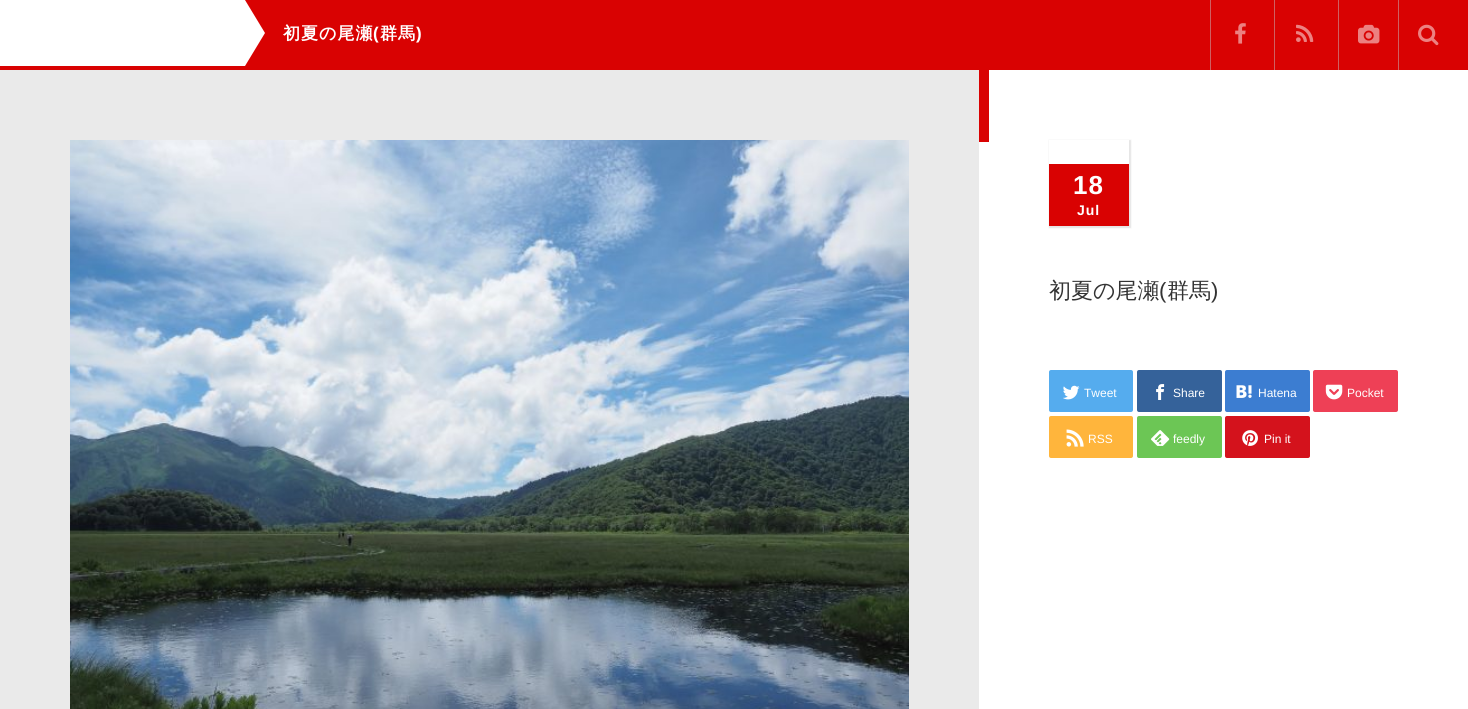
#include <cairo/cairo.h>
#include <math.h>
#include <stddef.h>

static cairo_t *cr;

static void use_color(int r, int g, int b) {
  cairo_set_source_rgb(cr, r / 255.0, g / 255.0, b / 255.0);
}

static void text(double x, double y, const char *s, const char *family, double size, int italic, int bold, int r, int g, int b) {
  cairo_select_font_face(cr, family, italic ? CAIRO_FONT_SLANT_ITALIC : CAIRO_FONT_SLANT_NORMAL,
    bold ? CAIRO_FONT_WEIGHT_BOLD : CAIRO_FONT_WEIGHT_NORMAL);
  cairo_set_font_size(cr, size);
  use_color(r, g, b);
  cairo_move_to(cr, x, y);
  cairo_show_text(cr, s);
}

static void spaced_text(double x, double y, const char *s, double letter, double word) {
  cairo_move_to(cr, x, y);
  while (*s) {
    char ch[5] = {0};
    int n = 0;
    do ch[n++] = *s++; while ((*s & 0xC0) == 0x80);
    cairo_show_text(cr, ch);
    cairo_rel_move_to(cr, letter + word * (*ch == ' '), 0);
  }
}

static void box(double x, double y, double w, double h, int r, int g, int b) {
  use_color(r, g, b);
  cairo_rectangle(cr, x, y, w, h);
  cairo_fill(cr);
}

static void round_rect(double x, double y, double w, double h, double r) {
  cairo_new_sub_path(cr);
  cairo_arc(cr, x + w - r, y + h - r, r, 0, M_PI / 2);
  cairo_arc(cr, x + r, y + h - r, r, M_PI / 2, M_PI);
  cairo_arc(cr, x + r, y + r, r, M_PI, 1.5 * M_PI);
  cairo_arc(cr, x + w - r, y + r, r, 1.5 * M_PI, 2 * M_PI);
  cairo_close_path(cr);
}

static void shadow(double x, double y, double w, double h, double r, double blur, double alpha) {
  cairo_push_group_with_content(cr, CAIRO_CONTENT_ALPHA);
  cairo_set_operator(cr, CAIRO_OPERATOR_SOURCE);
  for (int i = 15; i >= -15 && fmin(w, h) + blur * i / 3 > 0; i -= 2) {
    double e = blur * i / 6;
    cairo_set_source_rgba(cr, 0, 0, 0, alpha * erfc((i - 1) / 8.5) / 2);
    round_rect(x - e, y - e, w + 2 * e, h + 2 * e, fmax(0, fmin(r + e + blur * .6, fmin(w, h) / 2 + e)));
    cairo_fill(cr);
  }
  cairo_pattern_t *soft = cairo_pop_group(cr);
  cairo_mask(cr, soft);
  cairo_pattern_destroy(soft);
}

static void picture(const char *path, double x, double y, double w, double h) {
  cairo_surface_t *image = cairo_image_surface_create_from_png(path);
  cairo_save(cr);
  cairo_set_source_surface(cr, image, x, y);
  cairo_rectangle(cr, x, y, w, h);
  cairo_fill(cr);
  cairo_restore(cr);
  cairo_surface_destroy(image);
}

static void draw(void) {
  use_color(234, 234, 234);
  cairo_paint(cr);
  box(0, 0, 1468, 70, 217, 2, 2);
  box(0, 0, 245, 66, 255, 255, 255);
  cairo_new_path(cr);
  cairo_move_to(cr, 245, 66);
  cairo_line_to(cr, 245, 0);
  cairo_line_to(cr, 265, 33);
  cairo_close_path(cr);
  cairo_fill(cr);
  box(1210, 0, 1, 70, 207, 96, 98);
  picture("img_01.png", 1235, 23, 11, 21);
  box(1274, 0, 1, 70, 207, 96, 98);
  picture("img_02.png", 1296, 24, 18, 18);
  box(1338, 0, 1, 70, 207, 96, 98);
  picture("img_03.png", 1358, 24, 22, 20);
  box(1398, 0, 1, 70, 207, 96, 98);
  picture("img_04.png", 1418, 24, 21, 22);
  picture("img_05.png", 70, 140, 839, 569);
  box(979, 70, 489, 639, 255, 255, 255);
  box(979, 70, 10, 72, 217, 2, 2);
  use_color(0, 0, 0);
  shadow(1049, 140, 82, 88, 0, 0.5, 0.1);
  box(1049, 164, 80, 62, 217, 2, 2);
  box(1049, 140, 80, 24, 255, 255, 255);
  use_color(85, 172, 238);
  round_rect(1049, 370, 84, 42, 2);
  cairo_fill(cr);
  picture("img_06.png", 1063, 385, 17, 15);
  use_color(53, 98, 154);
  round_rect(1137, 370, 85, 42, 2);
  cairo_fill(cr);
  picture("img_07.png", 1156, 384, 9, 16);
  use_color(60, 125, 209);
  round_rect(1225, 370, 85, 42, 2);
  cairo_fill(cr);
  picture("img_08.png", 1236, 385, 16, 13);
  use_color(238, 64, 86);
  round_rect(1313, 370, 85, 42, 2);
  cairo_fill(cr);
  picture("img_09.png", 1325, 384, 18, 16);
  use_color(255, 181, 60);
  round_rect(1049, 416, 84, 42, 2);
  cairo_fill(cr);
  picture("img_10.png", 1066, 429, 18, 18);
  use_color(108, 198, 85);
  round_rect(1137, 416, 85, 42, 2);
  cairo_fill(cr);
  picture("img_11.png", 1151, 430, 19, 16);
  use_color(212, 18, 28);
  round_rect(1225, 416, 85, 42, 2);
  cairo_fill(cr);
  picture("img_12.png", 1242, 430, 16, 16);
  cairo_select_font_face(cr, "WenQuanYi Zen Hei", CAIRO_FONT_SLANT_NORMAL, CAIRO_FONT_WEIGHT_BOLD);
  cairo_set_font_size(cr, 17);
  use_color(255, 255, 255);
  spaced_text(283, 39, "初夏の尾瀬", 1, 0);
  cairo_select_font_face(cr, "Liberation Sans", CAIRO_FONT_SLANT_NORMAL, CAIRO_FONT_WEIGHT_BOLD);
  spaced_text(373, 39, "(", 1, 0);
  cairo_select_font_face(cr, "WenQuanYi Zen Hei", CAIRO_FONT_SLANT_NORMAL, CAIRO_FONT_WEIGHT_BOLD);
  spaced_text(380, 39, "群馬", 1, 0);
  cairo_select_font_face(cr, "Liberation Sans", CAIRO_FONT_SLANT_NORMAL, CAIRO_FONT_WEIGHT_BOLD);
  spaced_text(416, 39, ")", 1, 0);
  cairo_set_font_size(cr, 26);
  spaced_text(1073, 194, "18", 1, 0);
  cairo_set_font_size(cr, 14);
  spaced_text(1077, 215, "Jul", 1, 0);
  text(1049, 298, "初夏の尾瀬", "WenQuanYi Zen Hei Medium", 22, 0, 0, 51, 51, 51);
  text(1159, 298, "(", "Liberation Sans", 22, 0, 0, 51, 51, 51);
  text(1167, 298, "群馬", "WenQuanYi Zen Hei Medium", 22, 0, 0, 51, 51, 51);
  text(1211, 298, ")", "Liberation Sans", 22, 0, 0, 51, 51, 51);
  text(1084, 397, "Tweet", "Liberation Sans", 12, 0, 0, 255, 255, 255);
  text(1173, 397, "Share", "Liberation Sans", 12, 0, 0, 255, 255, 255);
  text(1258, 397, "Hatena", "Liberation Sans", 12, 0, 0, 255, 255, 255);
  text(1347, 397, "Pocket", "Liberation Sans", 12, 0, 0, 255, 255, 255);
  text(1088, 443, "RSS", "Liberation Sans", 12, 0, 0, 255, 255, 255);
  text(1173, 443, "feedly", "Liberation Sans", 12, 0, 0, 255, 255, 255);
  text(1264, 443, "Pin it", "Liberation Sans", 12, 0, 0, 255, 255, 255);
}

int main(void) {
  cairo_surface_t *surface = cairo_image_surface_create(CAIRO_FORMAT_RGB24, 1468, 709);
  cr = cairo_create(surface);
  cairo_font_options_t *options = cairo_font_options_create();
  cairo_font_options_set_hint_metrics(options, CAIRO_HINT_METRICS_OFF);
  cairo_font_options_set_hint_style(options, CAIRO_HINT_STYLE_NONE);
  cairo_set_font_options(cr, options);
  cairo_set_miter_limit(cr, 4);
  draw();
  cairo_surface_write_to_png(surface, "out.png");
  cairo_font_options_destroy(options);
  cairo_destroy(cr);
  cairo_surface_destroy(surface);
  return 0;
}
